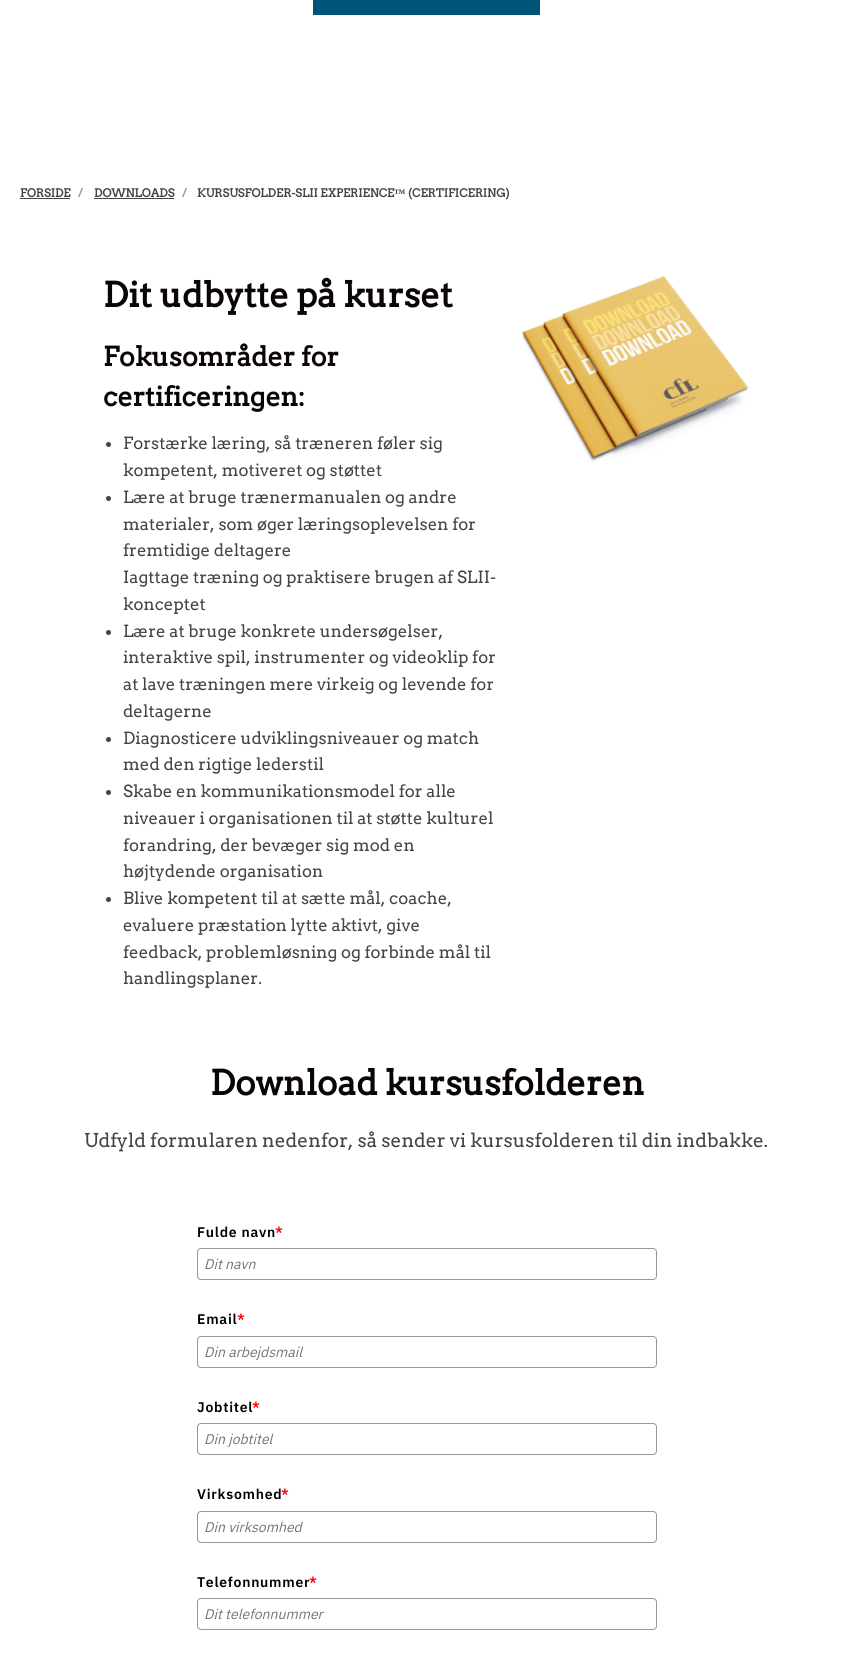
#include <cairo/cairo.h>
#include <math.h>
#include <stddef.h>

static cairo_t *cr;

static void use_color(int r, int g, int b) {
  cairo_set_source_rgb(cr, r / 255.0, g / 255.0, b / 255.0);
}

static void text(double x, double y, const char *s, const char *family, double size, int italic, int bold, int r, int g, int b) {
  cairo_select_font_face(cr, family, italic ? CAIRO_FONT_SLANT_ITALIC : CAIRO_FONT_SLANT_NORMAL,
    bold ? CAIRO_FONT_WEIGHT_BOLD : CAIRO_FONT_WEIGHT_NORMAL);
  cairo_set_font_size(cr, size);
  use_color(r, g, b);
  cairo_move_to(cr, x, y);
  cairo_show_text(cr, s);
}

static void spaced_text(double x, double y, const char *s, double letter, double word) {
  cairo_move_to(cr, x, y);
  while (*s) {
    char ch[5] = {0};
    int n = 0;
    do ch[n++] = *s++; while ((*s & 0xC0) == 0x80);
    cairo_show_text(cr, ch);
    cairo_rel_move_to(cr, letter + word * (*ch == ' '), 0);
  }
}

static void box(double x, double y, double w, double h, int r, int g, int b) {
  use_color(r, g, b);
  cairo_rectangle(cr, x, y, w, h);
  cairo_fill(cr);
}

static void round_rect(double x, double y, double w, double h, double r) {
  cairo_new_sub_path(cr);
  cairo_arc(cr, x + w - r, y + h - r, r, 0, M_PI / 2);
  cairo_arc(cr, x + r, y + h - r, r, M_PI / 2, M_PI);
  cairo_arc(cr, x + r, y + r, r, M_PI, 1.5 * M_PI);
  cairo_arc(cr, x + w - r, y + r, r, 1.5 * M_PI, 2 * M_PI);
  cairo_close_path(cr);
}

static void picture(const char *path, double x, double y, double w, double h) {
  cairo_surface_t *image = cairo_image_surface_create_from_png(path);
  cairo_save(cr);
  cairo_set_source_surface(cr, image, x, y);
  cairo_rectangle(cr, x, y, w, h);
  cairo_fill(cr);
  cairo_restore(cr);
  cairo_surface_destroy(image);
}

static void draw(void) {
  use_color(255, 255, 255);
  cairo_paint(cr);
  box(313, 0, 227, 15, 0, 84, 122);
  box(20, 198, 50, 1, 68, 68, 68);
  box(94, 198, 80, 1, 68, 68, 68);
  cairo_arc(cr, 108.5, 444.5, 2.5, 0, 2 * M_PI);
  cairo_fill(cr);
  cairo_arc(cr, 108.5, 498.5, 2.5, 0, 2 * M_PI);
  cairo_fill(cr);
  cairo_arc(cr, 108.5, 632.5, 2.5, 0, 2 * M_PI);
  cairo_fill(cr);
  cairo_arc(cr, 108.5, 739.5, 2.5, 0, 2 * M_PI);
  cairo_fill(cr);
  cairo_arc(cr, 108.5, 792.5, 2.5, 0, 2 * M_PI);
  cairo_fill(cr);
  cairo_arc(cr, 108.5, 899.5, 2.5, 0, 2 * M_PI);
  cairo_fill(cr);
  picture("img_01.png", 522, 276, 227, 186);
  round_rect(197.5, 1248.5, 459, 31, 3.5);
  use_color(151, 151, 151);
  cairo_set_line_width(cr, 1);
  cairo_stroke(cr);
  round_rect(197.5, 1336.5, 459, 31, 3.5);
  cairo_stroke(cr);
  round_rect(197.5, 1423.5, 459, 31, 3.5);
  cairo_stroke(cr);
  round_rect(197.5, 1511.5, 459, 31, 3.5);
  cairo_stroke(cr);
  round_rect(197.5, 1598.5, 459, 31, 3.5);
  cairo_stroke(cr);
  text(20, 197, "FORSIDE", "Arvo", 11.4, 0, 1, 68, 68, 68);
  text(78, 197, "/", "Arvo", 11.4, 0, 1, 143, 143, 143);
  text(94, 197, "DOWNLOADS", "Arvo", 11.4, 0, 1, 68, 68, 68);
  text(182, 197, "/", "Arvo", 11.4, 0, 1, 143, 143, 143);
  text(197, 197, "KURSUSFOLDER-SLII EXPERIENCE", "Arvo", 11.4, 0, 1, 68, 68, 68);
  text(394, 197, "™", "Liberation Serif", 11.4, 0, 1, 68, 68, 68);
  text(408, 197, "(CERTIFICERING)", "Arvo", 11.4, 0, 1, 68, 68, 68);
  text(103, 307, "Dit udbytte på kurset", "Arvo", 34.25, 0, 1, 10, 4, 4);
  text(103, 366, "Fokusområder for", "Arvo", 26.5, 0, 1, 10, 4, 4);
  text(103, 406, "certificeringen:", "Arvo", 26.5, 0, 1, 10, 4, 4);
  text(123, 449, "Forstærke læring, så træneren føler sig", "Arvo", 16.75, 0, 0, 68, 68, 68);
  text(123, 476, "kompetent, motiveret og støttet", "Arvo", 16.75, 0, 0, 68, 68, 68);
  text(123, 503, "Lære at bruge trænermanualen og andre", "Arvo", 16.75, 0, 0, 68, 68, 68);
  text(123, 530, "materialer, som øger læringsoplevelsen for", "Arvo", 16.75, 0, 0, 68, 68, 68);
  text(123, 556, "fremtidige deltagere", "Arvo", 16.75, 0, 0, 68, 68, 68);
  text(123, 583, "Iagttage træning og praktisere brugen af SLII-", "Arvo", 16.75, 0, 0, 68, 68, 68);
  text(123, 610, "konceptet", "Arvo", 16.75, 0, 0, 68, 68, 68);
  text(123, 637, "Lære at bruge konkrete undersøgelser,", "Arvo", 16.75, 0, 0, 68, 68, 68);
  text(123, 663, "interaktive spil, instrumenter og videoklip for", "Arvo", 16.75, 0, 0, 68, 68, 68);
  text(123, 690, "at lave træningen mere virkeig og levende for", "Arvo", 16.75, 0, 0, 68, 68, 68);
  text(123, 717, "deltagerne", "Arvo", 16.75, 0, 0, 68, 68, 68);
  text(123, 744, "Diagnosticere udviklingsniveauer og match", "Arvo", 16.75, 0, 0, 68, 68, 68);
  text(123, 770, "med den rigtige lederstil", "Arvo", 16.75, 0, 0, 68, 68, 68);
  text(123, 797, "Skabe en kommunikationsmodel for alle", "Arvo", 16.75, 0, 0, 68, 68, 68);
  text(123, 824, "niveauer i organisationen til at støtte kulturel", "Arvo", 16.75, 0, 0, 68, 68, 68);
  text(123, 851, "forandring, der bevæger sig mod en", "Arvo", 16.75, 0, 0, 68, 68, 68);
  text(123, 877, "højtydende organisation", "Arvo", 16.75, 0, 0, 68, 68, 68);
  text(123, 904, "Blive kompetent til at sætte mål, coache,", "Arvo", 16.75, 0, 0, 68, 68, 68);
  text(123, 931, "evaluere præstation lytte aktivt, give", "Arvo", 16.75, 0, 0, 68, 68, 68);
  text(123, 958, "feedback, problemløsning og forbinde mål til", "Arvo", 16.75, 0, 0, 68, 68, 68);
  text(123, 984, "handlingsplaner.", "Arvo", 16.75, 0, 0, 68, 68, 68);
  text(210, 1095, "Download kursusfolderen", "Arvo", 34.25, 0, 1, 10, 4, 4);
  text(84, 1147, "Udfyld formularen nedenfor, så sender vi kursusfolderen til din indbakke.", "Arvo", 19, 0, 0, 68, 68, 68);
  cairo_select_font_face(cr, "IBM Plex Sans SemiBold", CAIRO_FONT_SLANT_NORMAL, CAIRO_FONT_WEIGHT_NORMAL);
  cairo_set_font_size(cr, 14);
  use_color(0, 0, 0);
  spaced_text(197, 1237, "Fulde navn", 0.75, 0);
  use_color(255, 0, 0);
  spaced_text(275, 1237, "*", 0.75, 0);
  text(204, 1269, "Dit navn", "IBM Plex Sans", 14, 1, 0, 117, 117, 117);
  cairo_select_font_face(cr, "IBM Plex Sans SemiBold", CAIRO_FONT_SLANT_NORMAL, CAIRO_FONT_WEIGHT_NORMAL);
  use_color(0, 0, 0);
  spaced_text(197, 1324, "Email", 0.75, 0);
  use_color(255, 0, 0);
  spaced_text(237, 1324, "*", 0.75, 0);
  text(204, 1357, "Din arbejdsmail", "IBM Plex Sans", 14, 1, 0, 117, 117, 117);
  cairo_select_font_face(cr, "IBM Plex Sans SemiBold", CAIRO_FONT_SLANT_NORMAL, CAIRO_FONT_WEIGHT_NORMAL);
  use_color(0, 0, 0);
  spaced_text(197, 1412, "Jobtitel", 0.75, 0);
  use_color(255, 0, 0);
  spaced_text(252, 1412, "*", 0.75, 0);
  text(204, 1444, "Din jobtitel", "IBM Plex Sans", 14, 1, 0, 117, 117, 117);
  cairo_select_font_face(cr, "IBM Plex Sans SemiBold", CAIRO_FONT_SLANT_NORMAL, CAIRO_FONT_WEIGHT_NORMAL);
  use_color(0, 0, 0);
  spaced_text(197, 1499, "Virksomhed", 0.75, 0);
  use_color(255, 0, 0);
  spaced_text(281, 1499, "*", 0.75, 0);
  text(204, 1532, "Din virksomhed", "IBM Plex Sans", 14, 1, 0, 117, 117, 117);
  cairo_select_font_face(cr, "IBM Plex Sans SemiBold", CAIRO_FONT_SLANT_NORMAL, CAIRO_FONT_WEIGHT_NORMAL);
  use_color(0, 0, 0);
  spaced_text(197, 1587, "Telefonnummer", 0.75, 0);
  use_color(255, 0, 0);
  spaced_text(309, 1587, "*", 0.75, 0);
  text(204, 1619, "Dit telefonnummer", "IBM Plex Sans", 14, 1, 0, 117, 117, 117);
}

int main(void) {
  cairo_surface_t *surface = cairo_image_surface_create(CAIRO_FORMAT_RGB24, 853, 1655);
  cr = cairo_create(surface);
  cairo_font_options_t *options = cairo_font_options_create();
  cairo_font_options_set_hint_metrics(options, CAIRO_HINT_METRICS_OFF);
  cairo_font_options_set_hint_style(options, CAIRO_HINT_STYLE_NONE);
  cairo_set_font_options(cr, options);
  cairo_set_miter_limit(cr, 4);
  draw();
  cairo_surface_write_to_png(surface, "out.png");
  cairo_font_options_destroy(options);
  cairo_destroy(cr);
  cairo_surface_destroy(surface);
  return 0;
}
